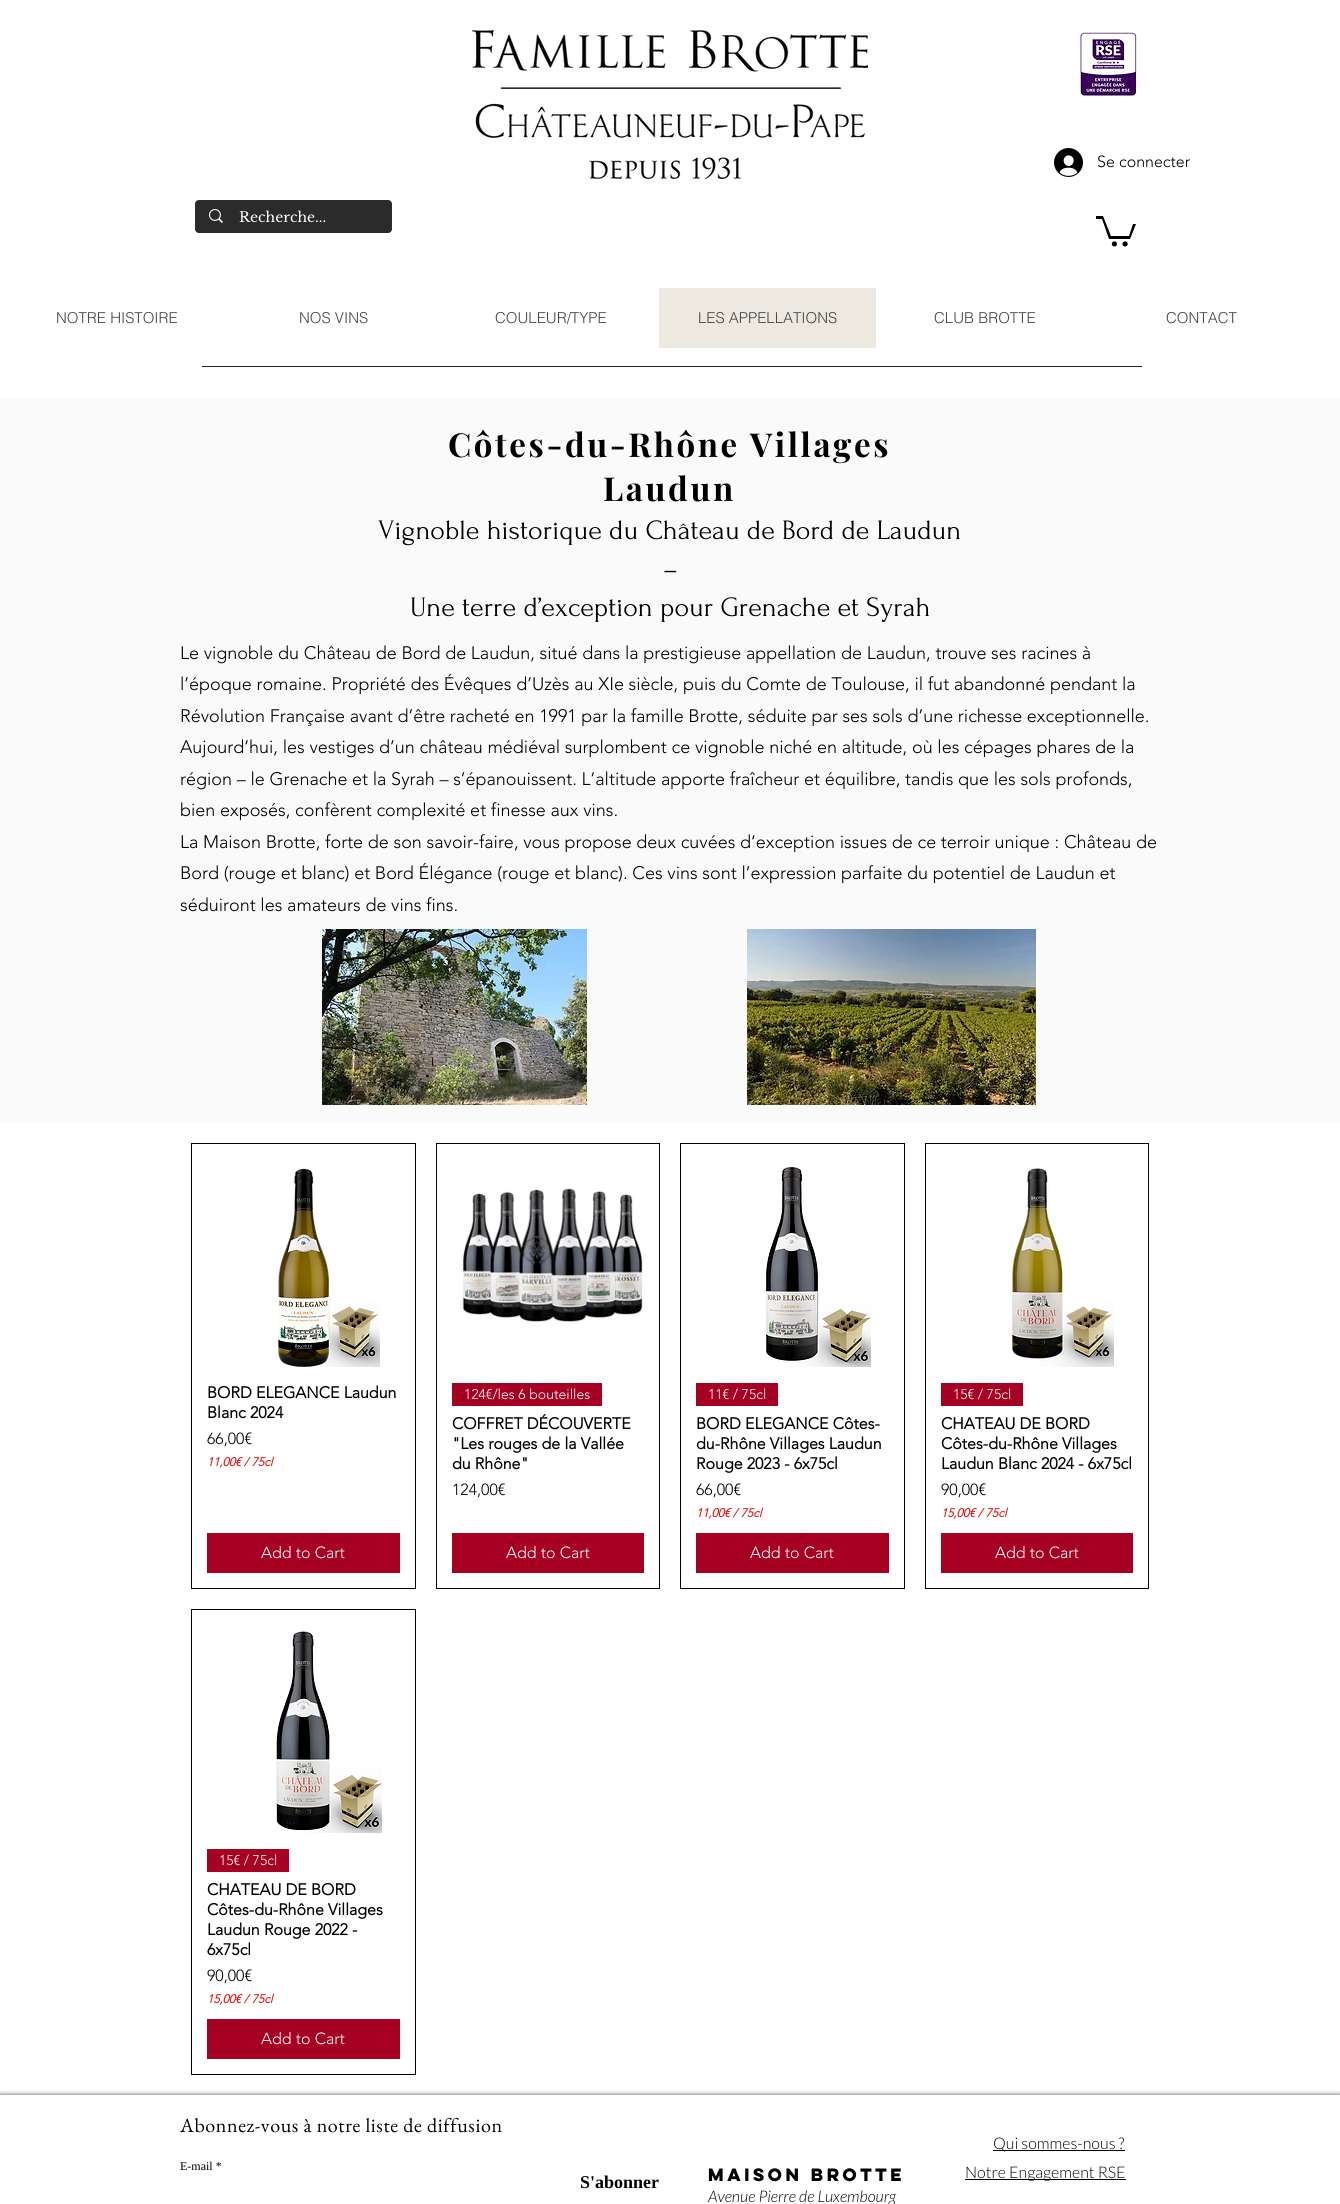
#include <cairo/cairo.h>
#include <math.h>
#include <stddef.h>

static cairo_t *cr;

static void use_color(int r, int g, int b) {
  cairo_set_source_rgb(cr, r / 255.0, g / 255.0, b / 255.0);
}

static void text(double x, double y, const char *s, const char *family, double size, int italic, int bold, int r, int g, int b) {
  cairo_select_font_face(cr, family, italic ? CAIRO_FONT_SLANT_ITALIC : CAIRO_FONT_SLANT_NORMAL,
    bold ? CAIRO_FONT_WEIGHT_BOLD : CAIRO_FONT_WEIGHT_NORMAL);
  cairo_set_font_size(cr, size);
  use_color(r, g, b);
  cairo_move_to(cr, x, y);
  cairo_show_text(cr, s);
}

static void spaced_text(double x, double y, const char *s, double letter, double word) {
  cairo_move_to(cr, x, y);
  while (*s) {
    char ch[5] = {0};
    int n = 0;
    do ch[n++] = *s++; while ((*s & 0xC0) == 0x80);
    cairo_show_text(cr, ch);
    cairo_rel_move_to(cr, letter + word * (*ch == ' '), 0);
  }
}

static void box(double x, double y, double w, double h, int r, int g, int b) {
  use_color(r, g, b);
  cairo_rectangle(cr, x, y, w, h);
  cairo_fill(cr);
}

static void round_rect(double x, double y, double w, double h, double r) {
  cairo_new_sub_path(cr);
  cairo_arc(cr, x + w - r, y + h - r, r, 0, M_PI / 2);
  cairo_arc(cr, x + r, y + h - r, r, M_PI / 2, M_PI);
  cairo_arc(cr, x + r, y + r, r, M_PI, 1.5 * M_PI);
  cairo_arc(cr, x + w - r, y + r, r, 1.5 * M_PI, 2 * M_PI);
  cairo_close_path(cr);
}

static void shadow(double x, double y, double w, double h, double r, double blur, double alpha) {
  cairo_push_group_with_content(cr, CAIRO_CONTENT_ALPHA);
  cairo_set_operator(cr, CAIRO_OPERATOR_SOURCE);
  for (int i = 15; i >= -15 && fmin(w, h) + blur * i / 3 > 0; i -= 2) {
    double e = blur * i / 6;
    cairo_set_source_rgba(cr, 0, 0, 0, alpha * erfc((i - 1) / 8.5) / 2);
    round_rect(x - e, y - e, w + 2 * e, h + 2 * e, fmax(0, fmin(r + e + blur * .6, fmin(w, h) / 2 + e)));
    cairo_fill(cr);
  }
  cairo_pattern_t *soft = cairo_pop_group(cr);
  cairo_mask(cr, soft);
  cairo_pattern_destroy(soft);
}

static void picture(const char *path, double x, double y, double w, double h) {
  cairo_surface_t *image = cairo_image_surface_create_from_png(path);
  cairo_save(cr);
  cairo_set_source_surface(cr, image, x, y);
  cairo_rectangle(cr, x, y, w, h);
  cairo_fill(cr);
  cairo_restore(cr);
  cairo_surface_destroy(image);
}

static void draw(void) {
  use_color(255, 255, 255);
  cairo_paint(cr);
  picture("img_01.png", 472, 30, 396, 149);
  picture("img_02.png", 1080, 32, 57, 64);
  picture("img_03.png", 1054, 148, 29, 29);
  use_color(43, 43, 43);
  round_rect(195, 200, 197, 33, 4);
  cairo_fill(cr);
  picture("img_04.png", 209, 209, 14, 14);
  use_color(0, 0, 0);
  cairo_new_path(cr);
  cairo_move_to(cr, 1136, 224);
  cairo_line_to(cr, 1130, 239);
  cairo_line_to(cr, 1109, 239);
  cairo_line_to(cr, 1102, 219);
  cairo_line_to(cr, 1096, 219);
  cairo_line_to(cr, 1096, 216);
  cairo_line_to(cr, 1103, 216);
  cairo_line_to(cr, 1111, 236);
  cairo_line_to(cr, 1129, 236);
  cairo_line_to(cr, 1133, 224);
  cairo_fill(cr);
  cairo_arc(cr, 1125.1, 243.9, 2.6, 0, 2 * M_PI);
  cairo_fill(cr);
  cairo_arc(cr, 1114.4, 243.9, 2.6, 0, 2 * M_PI);
  cairo_fill(cr);
  box(659, 288, 217, 60, 237, 233, 225);
  box(202, 366, 940, 1, 38, 38, 38);
  box(0, 399, 1340, 724, 250, 250, 250);
  picture("img_05.png", 322, 929, 265, 176);
  picture("img_06.png", 747, 929, 289, 176);
  cairo_rectangle(cr, 191.5, 1143.5, 224, 445);
  use_color(0, 0, 0);
  cairo_set_line_width(cr, 1);
  cairo_stroke(cr);
  picture("img_07.png", 278, 1168, 102, 199);
  box(207, 1533, 193, 40, 166, 1, 34);
  cairo_rectangle(cr, 436.5, 1143.5, 223, 445);
  use_color(0, 0, 0);
  cairo_stroke(cr);
  picture("img_08.png", 462, 1188, 181, 134);
  box(452, 1383, 150, 23, 166, 1, 34);
  box(452, 1533, 192, 40, 166, 1, 34);
  cairo_rectangle(cr, 680.5, 1143.5, 224, 445);
  use_color(0, 0, 0);
  cairo_stroke(cr);
  picture("img_09.png", 766, 1167, 105, 200);
  box(696, 1383, 82, 23, 166, 1, 34);
  box(696, 1533, 193, 40, 166, 1, 34);
  cairo_rectangle(cr, 925.5, 1143.5, 223, 445);
  use_color(0, 0, 0);
  cairo_stroke(cr);
  picture("img_10.png", 1012, 1168, 102, 199);
  box(941, 1383, 82, 23, 166, 1, 34);
  box(941, 1533, 192, 40, 166, 1, 34);
  cairo_rectangle(cr, 191.5, 1609.5, 224, 465);
  use_color(0, 0, 0);
  cairo_stroke(cr);
  picture("img_11.png", 276, 1631, 106, 202);
  box(207, 1849, 82, 23, 166, 1, 34);
  box(207, 2019, 193, 40, 166, 1, 34);
  cairo_save(cr);
  cairo_rectangle(cr, 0, 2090, 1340, 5);
  cairo_clip(cr);
  use_color(0, 0, 0);
  shadow(0, 2095, 1340, 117, 0, 2.5, 0.7);
  cairo_restore(cr);
  box(993, 2150, 132, 1, 0, 0, 0);
  box(965, 2179, 161, 1, 0, 0, 0);
  text(1097, 167, "Se connecter", "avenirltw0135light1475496 Light", 16, 0, 0, 0, 0, 0);
  text(239, 222, "Recherche...", "Libre Baskerville", 14, 0, 0, 255, 255, 255);
  text(56, 323, "NOTRE HISTOIRE", "helvetica Light", 15, 0, 0, 68, 68, 68);
  text(299, 323, "NOS VINS", "helvetica Light", 15, 0, 0, 68, 68, 68);
  text(495, 323, "COULEUR/TYPE", "helvetica Light", 15, 0, 0, 68, 68, 68);
  text(698, 323, "LES APPELLATIONS", "helvetica Light", 15, 0, 0, 68, 68, 68);
  text(934, 323, "CLUB BROTTE", "helvetica Light", 15, 0, 0, 68, 68, 68);
  text(1166, 323, "CONTACT", "helvetica Light", 15, 0, 0, 68, 68, 68);
  cairo_select_font_face(cr, "Playfair Display", CAIRO_FONT_SLANT_NORMAL, CAIRO_FONT_WEIGHT_BOLD);
  cairo_set_font_size(cr, 33);
  use_color(0, 0, 0);
  spaced_text(448, 457, "Côtes-du-Rhône Villages", 2.6, 0);
  spaced_text(603, 501, "Laudun", 2.6, 0);
  text(378, 539, "Vignoble historique du Château de Bord de Laudun", "Forum", 28, 0, 0, 0, 0, 0);
  text(663, 578, "–", "Forum", 28, 0, 0, 0, 0, 0);
  text(410, 616, "Une terre d’exception pour Grenache et Syrah", "Forum", 28, 0, 0, 0, 0, 0);
  text(180, 659, "Le vignoble du Château de Bord de Laudun, situé dans la prestigieuse appellation de Laudun, trouve ses racines à", "avenirltw0135light1475496 Light", 18, 0, 0, 0, 0, 0);
  text(180, 690, "l’époque romaine. Propriété des Évêques d’Uzès au XIe siècle, puis du Comte de Toulouse, il fut abandonné pendant la", "avenirltw0135light1475496 Light", 18, 0, 0, 0, 0, 0);
  text(180, 722, "Révolution Française avant d’être racheté en 1991 par la famille Brotte, séduite par ses sols d’une richesse exceptionnelle.", "avenirltw0135light1475496 Light", 18, 0, 0, 0, 0, 0);
  text(180, 753, "Aujourd’hui, les vestiges d’un château médiéval surplombent ce vignoble niché en altitude, où les cépages phares de la", "avenirltw0135light1475496 Light", 18, 0, 0, 0, 0, 0);
  text(180, 785, "région – le Grenache et la Syrah – s’épanouissent. L’altitude apporte fraîcheur et équilibre, tandis que les sols profonds,", "avenirltw0135light1475496 Light", 18, 0, 0, 0, 0, 0);
  text(180, 816, "bien exposés, confèrent complexité et finesse aux vins.", "avenirltw0135light1475496 Light", 18, 0, 0, 0, 0, 0);
  text(180, 848, "La Maison Brotte, forte de son savoir-faire, vous propose deux cuvées d’exception issues de ce terroir unique : Château de", "avenirltw0135light1475496 Light", 18, 0, 0, 0, 0, 0);
  text(180, 879, "Bord (rouge et blanc) et Bord Élégance (rouge et blanc). Ces vins sont l’expression parfaite du potentiel de Laudun et", "avenirltw0135light1475496 Light", 18, 0, 0, 0, 0, 0);
  text(180, 911, "séduiront les amateurs de vins fins.", "avenirltw0135light1475496 Light", 18, 0, 0, 0, 0, 0);
  text(207, 1398, "BORD ELEGANCE Laudun", "avenirltw0135light1475496", 16, 0, 1, 0, 0, 0);
  text(207, 1418, "Blanc 2024", "avenirltw0135light1475496", 16, 0, 1, 0, 0, 0);
  text(207, 1444, "66,00€", "avenirltw0135light1475496 Light", 16, 0, 0, 0, 0, 0);
  text(207, 1466, "11,00€ / 75cl", "avenirltw0135light1475496", 12, 1, 1, 222, 24, 24);
  text(261, 1558, "Add to Cart", "avenirltw0135light1475496 Light", 16, 0, 0, 255, 255, 255);
  text(464, 1399, "124€/les 6 bouteilles", "avenirltw0135light1475496 Light", 14, 0, 0, 255, 255, 255);
  text(452, 1429, "COFFRET DÉCOUVERTE", "avenirltw0135light1475496", 16, 0, 1, 0, 0, 0);
  text(452, 1449, "\"Les rouges de la Vallée", "avenirltw0135light1475496", 16, 0, 1, 0, 0, 0);
  text(452, 1469, "du Rhône\"", "avenirltw0135light1475496", 16, 0, 1, 0, 0, 0);
  text(452, 1495, "124,00€", "avenirltw0135light1475496 Light", 16, 0, 0, 0, 0, 0);
  text(506, 1558, "Add to Cart", "avenirltw0135light1475496 Light", 16, 0, 0, 255, 255, 255);
  text(708, 1399, "11€ / 75cl", "avenirltw0135light1475496 Light", 14, 0, 0, 255, 255, 255);
  text(696, 1429, "BORD ELEGANCE Côtes-", "avenirltw0135light1475496", 16, 0, 1, 0, 0, 0);
  text(696, 1449, "du-Rhône Villages Laudun", "avenirltw0135light1475496", 16, 0, 1, 0, 0, 0);
  text(696, 1469, "Rouge 2023 - 6x75cl", "avenirltw0135light1475496", 16, 0, 1, 0, 0, 0);
  text(696, 1495, "66,00€", "avenirltw0135light1475496 Light", 16, 0, 0, 0, 0, 0);
  text(696, 1517, "11,00€ / 75cl", "avenirltw0135light1475496", 12, 1, 1, 222, 24, 24);
  text(750, 1558, "Add to Cart", "avenirltw0135light1475496 Light", 16, 0, 0, 255, 255, 255);
  text(953, 1399, "15€ / 75cl", "avenirltw0135light1475496 Light", 14, 0, 0, 255, 255, 255);
  text(941, 1429, "CHATEAU DE BORD", "avenirltw0135light1475496", 16, 0, 1, 0, 0, 0);
  text(941, 1449, "Côtes-du-Rhône Villages", "avenirltw0135light1475496", 16, 0, 1, 0, 0, 0);
  text(941, 1469, "Laudun Blanc 2024 - 6x75cl", "avenirltw0135light1475496", 16, 0, 1, 0, 0, 0);
  text(941, 1495, "90,00€", "avenirltw0135light1475496 Light", 16, 0, 0, 0, 0, 0);
  text(941, 1517, "15,00€ / 75cl", "avenirltw0135light1475496", 12, 1, 1, 222, 24, 24);
  text(995, 1558, "Add to Cart", "avenirltw0135light1475496 Light", 16, 0, 0, 255, 255, 255);
  text(219, 1865, "15€ / 75cl", "avenirltw0135light1475496 Light", 14, 0, 0, 255, 255, 255);
  text(207, 1895, "CHATEAU DE BORD", "avenirltw0135light1475496", 16, 0, 1, 0, 0, 0);
  text(207, 1915, "Côtes-du-Rhône Villages", "avenirltw0135light1475496", 16, 0, 1, 0, 0, 0);
  text(207, 1935, "Laudun Rouge 2022 -", "avenirltw0135light1475496", 16, 0, 1, 0, 0, 0);
  text(207, 1955, "6x75cl", "avenirltw0135light1475496", 16, 0, 1, 0, 0, 0);
  text(207, 1981, "90,00€", "avenirltw0135light1475496 Light", 16, 0, 0, 0, 0, 0);
  text(207, 2003, "15,00€ / 75cl", "avenirltw0135light1475496", 12, 1, 1, 222, 24, 24);
  text(261, 2044, "Add to Cart", "avenirltw0135light1475496 Light", 16, 0, 0, 255, 255, 255);
  cairo_select_font_face(cr, "EB Garamond", CAIRO_FONT_SLANT_NORMAL, CAIRO_FONT_WEIGHT_NORMAL);
  cairo_set_font_size(cr, 20);
  use_color(0, 0, 0);
  spaced_text(180, 2132, "Abonnez-vous à notre liste de diffusion", 0.6, 0);
  text(180, 2170, "E-mail *", "Liberation Serif", 12, 0, 0, 0, 0, 0);
  text(580, 2188, "S'abonner", "Liberation Serif", 18, 0, 1, 0, 0, 0);
  text(993, 2149, "Qui sommes-nous ?", "Lato Light", 16, 0, 0, 0, 0, 0);
  text(965, 2178, "Notre Engagement RSE", "Lato Light", 16, 0, 0, 0, 0, 0);
  text(708, 2181, "MAISON BROTTE", "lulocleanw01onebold", 16, 0, 1, 0, 0, 0);
  text(708, 2202, "Avenue Pierre de Luxembourg", "Lato Light", 16, 1, 0, 0, 0, 0);
}

int main(void) {
  cairo_surface_t *surface = cairo_image_surface_create(CAIRO_FORMAT_RGB24, 1340, 2204);
  cr = cairo_create(surface);
  cairo_font_options_t *options = cairo_font_options_create();
  cairo_font_options_set_hint_metrics(options, CAIRO_HINT_METRICS_OFF);
  cairo_font_options_set_hint_style(options, CAIRO_HINT_STYLE_NONE);
  cairo_set_font_options(cr, options);
  cairo_set_miter_limit(cr, 4);
  draw();
  cairo_surface_write_to_png(surface, "out.png");
  cairo_font_options_destroy(options);
  cairo_destroy(cr);
  cairo_surface_destroy(surface);
  return 0;
}
